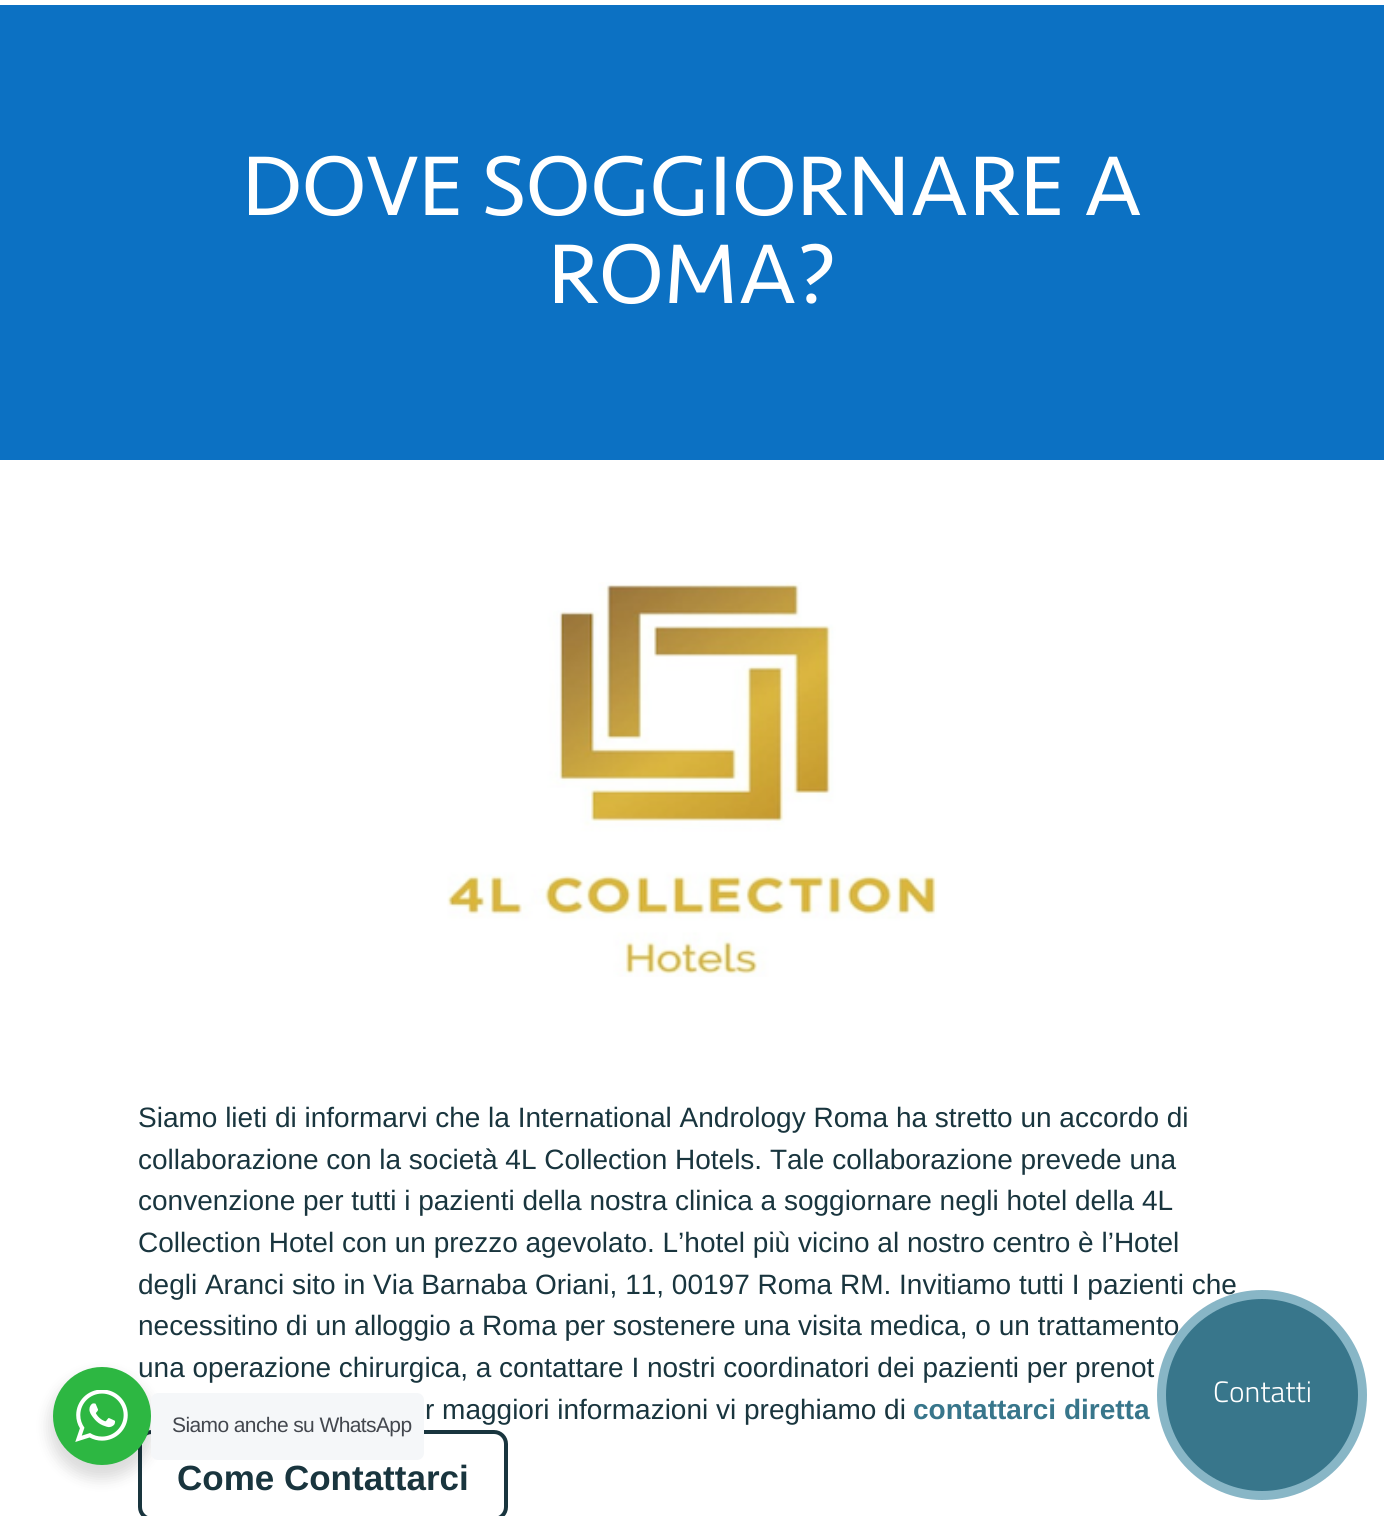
#include <cairo/cairo.h>
#include <math.h>
#include <stddef.h>

static cairo_t *cr;

static void use_color(int r, int g, int b) {
  cairo_set_source_rgb(cr, r / 255.0, g / 255.0, b / 255.0);
}

static void text(double x, double y, const char *s, const char *family, double size, int italic, int bold, int r, int g, int b) {
  cairo_select_font_face(cr, family, italic ? CAIRO_FONT_SLANT_ITALIC : CAIRO_FONT_SLANT_NORMAL,
    bold ? CAIRO_FONT_WEIGHT_BOLD : CAIRO_FONT_WEIGHT_NORMAL);
  cairo_set_font_size(cr, size);
  use_color(r, g, b);
  cairo_move_to(cr, x, y);
  cairo_show_text(cr, s);
}

static void spaced_text(double x, double y, const char *s, double letter, double word) {
  cairo_move_to(cr, x, y);
  while (*s) {
    char ch[5] = {0};
    int n = 0;
    do ch[n++] = *s++; while ((*s & 0xC0) == 0x80);
    cairo_show_text(cr, ch);
    cairo_rel_move_to(cr, letter + word * (*ch == ' '), 0);
  }
}

static void box(double x, double y, double w, double h, int r, int g, int b) {
  use_color(r, g, b);
  cairo_rectangle(cr, x, y, w, h);
  cairo_fill(cr);
}

static void round_rect(double x, double y, double w, double h, double r) {
  cairo_new_sub_path(cr);
  cairo_arc(cr, x + w - r, y + h - r, r, 0, M_PI / 2);
  cairo_arc(cr, x + r, y + h - r, r, M_PI / 2, M_PI);
  cairo_arc(cr, x + r, y + r, r, M_PI, 1.5 * M_PI);
  cairo_arc(cr, x + w - r, y + r, r, 1.5 * M_PI, 2 * M_PI);
  cairo_close_path(cr);
}

static void shadow(double x, double y, double w, double h, double r, double blur, double alpha) {
  cairo_push_group_with_content(cr, CAIRO_CONTENT_ALPHA);
  cairo_set_operator(cr, CAIRO_OPERATOR_SOURCE);
  for (int i = 15; i >= -15 && fmin(w, h) + blur * i / 3 > 0; i -= 2) {
    double e = blur * i / 6;
    cairo_set_source_rgba(cr, 0, 0, 0, alpha * erfc((i - 1) / 8.5) / 2);
    round_rect(x - e, y - e, w + 2 * e, h + 2 * e, fmax(0, fmin(r + e + blur * .6, fmin(w, h) / 2 + e)));
    cairo_fill(cr);
  }
  cairo_pattern_t *soft = cairo_pop_group(cr);
  cairo_mask(cr, soft);
  cairo_pattern_destroy(soft);
}

static void picture(const char *path, double x, double y, double w, double h) {
  cairo_surface_t *image = cairo_image_surface_create_from_png(path);
  cairo_save(cr);
  cairo_set_source_surface(cr, image, x, y);
  cairo_rectangle(cr, x, y, w, h);
  cairo_fill(cr);
  cairo_restore(cr);
  cairo_surface_destroy(image);
}

static void draw(void) {
  use_color(255, 255, 255);
  cairo_paint(cr);
  box(0, 5, 1384, 455, 12, 113, 195);
  picture("img_01.png", 447, 582, 490, 395);
  round_rect(140, 1432, 366, 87, 12);
  use_color(25, 53, 62);
  cairo_set_line_width(cr, 4);
  cairo_stroke(cr);
  use_color(0, 0, 0);
  shadow(49, 1374, 105, 105, 52.5, 7, 0.14);
  use_color(245, 247, 249);
  round_rect(151, 1393, 273, 67, 7);
  cairo_fill(cr);
  text(242, 215, "DOVE SOGGIORNARE A", "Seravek", 87.5, 0, 0, 255, 255, 255);
  text(548, 303, "ROMA?", "Seravek", 87.5, 0, 0, 255, 255, 255);
  text(138, 1127, "Siamo lieti di informarvi che la International Andrology Roma ha stretto un accordo di", "Liberation Sans", 28, 0, 0, 25, 53, 62);
  text(138, 1169, "collaborazione con la società 4L Collection Hotels. Tale collaborazione prevede una", "Liberation Sans", 28, 0, 0, 25, 53, 62);
  text(138, 1210, "convenzione per tutti i pazienti della nostra clinica a soggiornare negli hotel della 4L", "Liberation Sans", 28, 0, 0, 25, 53, 62);
  text(138, 1252, "Collection Hotel con un prezzo agevolato. L’hotel più vicino al nostro centro è l’Hotel", "Liberation Sans", 28, 0, 0, 25, 53, 62);
  text(138, 1294, "degli Aranci sito in Via Barnaba Oriani, 11, 00197 Roma RM. Invitiamo tutti I pazienti che", "Liberation Sans", 28, 0, 0, 25, 53, 62);
  text(138, 1335, "necessitino di un alloggio a Roma per sostenere una visita medica, o un trattamento", "Liberation Sans", 28, 0, 0, 25, 53, 62);
  text(138, 1377, "una operazione chirurgica, a contattare I nostri coordinatori dei pazienti per prenot", "Liberation Sans", 28, 0, 0, 25, 53, 62);
  text(425, 1419, "r maggiori informazioni vi preghiamo di", "Liberation Sans", 28, 0, 0, 25, 53, 62);
  text(913, 1419, "contattarci diretta", "Liberation Sans", 28, 0, 1, 56, 118, 139);
  text(177, 1490, "Come Contattarci", "Liberation Sans", 35, 0, 1, 25, 53, 62);
  use_color(56, 118, 139);
  cairo_new_path(cr);
  cairo_arc(cr, 1262, 1395, 100.5, 0, 2 * M_PI);
  cairo_fill_preserve(cr);
  use_color(136, 182, 198);
  cairo_set_line_width(cr, 9);
  cairo_stroke(cr);
  text(1213, 1402, "Contatti", "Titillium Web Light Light", 29.5, 0, 0, 255, 255, 255);
  use_color(45, 183, 66);
  cairo_new_path(cr);
  cairo_arc(cr, 102, 1416, 49, 0, 2 * M_PI);
  cairo_fill(cr);
  picture("img_02.png", 75, 1390, 53, 52);
  cairo_select_font_face(cr, "Liberation Sans", CAIRO_FONT_SLANT_NORMAL, CAIRO_FONT_WEIGHT_NORMAL);
  cairo_set_font_size(cr, 21);
  use_color(67, 71, 78);
  spaced_text(172, 1432, "Siamo anche su WhatsApp", -0.6, 0);
}

int main(void) {
  cairo_surface_t *surface = cairo_image_surface_create(CAIRO_FORMAT_RGB24, 1384, 1516);
  cr = cairo_create(surface);
  cairo_font_options_t *options = cairo_font_options_create();
  cairo_font_options_set_hint_metrics(options, CAIRO_HINT_METRICS_OFF);
  cairo_font_options_set_hint_style(options, CAIRO_HINT_STYLE_NONE);
  cairo_set_font_options(cr, options);
  cairo_set_miter_limit(cr, 4);
  draw();
  cairo_surface_write_to_png(surface, "out.png");
  cairo_font_options_destroy(options);
  cairo_destroy(cr);
  cairo_surface_destroy(surface);
  return 0;
}
